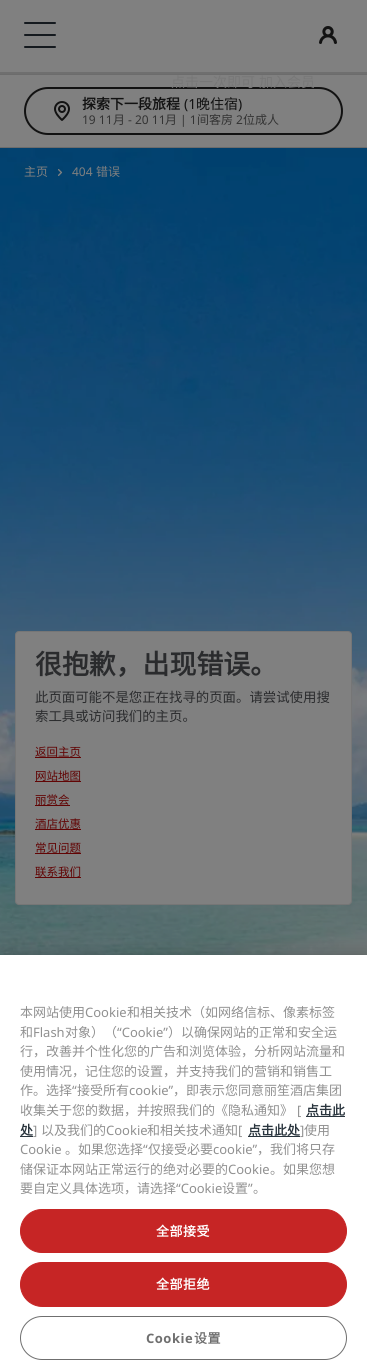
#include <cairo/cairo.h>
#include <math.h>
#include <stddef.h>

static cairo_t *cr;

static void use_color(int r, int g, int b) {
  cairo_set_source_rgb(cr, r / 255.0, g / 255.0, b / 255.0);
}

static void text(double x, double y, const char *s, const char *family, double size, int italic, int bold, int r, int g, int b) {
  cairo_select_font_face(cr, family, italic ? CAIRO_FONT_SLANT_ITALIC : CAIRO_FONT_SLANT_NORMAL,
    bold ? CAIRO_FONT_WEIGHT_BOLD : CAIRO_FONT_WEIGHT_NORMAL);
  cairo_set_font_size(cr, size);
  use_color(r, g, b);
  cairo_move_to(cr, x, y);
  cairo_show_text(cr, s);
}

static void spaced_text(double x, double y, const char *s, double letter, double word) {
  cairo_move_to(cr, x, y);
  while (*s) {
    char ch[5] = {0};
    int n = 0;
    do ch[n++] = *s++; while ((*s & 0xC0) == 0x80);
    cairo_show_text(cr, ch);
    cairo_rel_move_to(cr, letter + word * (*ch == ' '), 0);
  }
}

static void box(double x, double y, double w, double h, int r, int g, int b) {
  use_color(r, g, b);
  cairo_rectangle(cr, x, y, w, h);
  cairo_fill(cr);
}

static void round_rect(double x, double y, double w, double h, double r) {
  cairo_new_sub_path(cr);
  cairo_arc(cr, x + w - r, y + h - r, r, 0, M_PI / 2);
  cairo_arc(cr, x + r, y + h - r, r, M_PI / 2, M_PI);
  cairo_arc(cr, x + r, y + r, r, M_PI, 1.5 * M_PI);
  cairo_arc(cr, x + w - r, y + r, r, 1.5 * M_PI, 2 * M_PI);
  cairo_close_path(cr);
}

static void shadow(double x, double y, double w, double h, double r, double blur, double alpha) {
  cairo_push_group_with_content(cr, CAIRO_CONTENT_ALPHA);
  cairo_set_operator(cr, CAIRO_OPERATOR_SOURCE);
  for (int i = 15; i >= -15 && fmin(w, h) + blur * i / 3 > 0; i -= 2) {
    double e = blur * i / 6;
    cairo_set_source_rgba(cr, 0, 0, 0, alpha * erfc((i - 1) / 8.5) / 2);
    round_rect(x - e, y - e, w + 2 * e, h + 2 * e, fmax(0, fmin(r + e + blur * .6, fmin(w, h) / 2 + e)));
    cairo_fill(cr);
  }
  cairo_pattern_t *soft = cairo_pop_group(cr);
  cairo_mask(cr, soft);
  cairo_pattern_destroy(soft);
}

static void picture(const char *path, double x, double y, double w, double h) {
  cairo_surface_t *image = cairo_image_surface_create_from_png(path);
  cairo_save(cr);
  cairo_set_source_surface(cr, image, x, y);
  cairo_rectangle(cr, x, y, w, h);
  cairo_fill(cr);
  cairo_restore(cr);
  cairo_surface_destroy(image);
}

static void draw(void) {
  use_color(128, 128, 128);
  cairo_paint(cr);
  box(0, 72, 367, 2, 111, 111, 111);
  use_color(21, 26, 31);
  round_rect(24, 34, 32, 2, 1);
  cairo_fill(cr);
  round_rect(24, 22, 32, 2, 1);
  cairo_fill(cr);
  round_rect(24, 46, 32, 2, 1);
  cairo_fill(cr);
  picture("img_01.png", 319, 26, 18, 18);
  box(0, 74, 367, 1, 108, 108, 108);
  box(0, 147, 367, 1, 108, 108, 108);
  round_rect(25, 88, 317, 46, 23);
  use_color(18, 18, 18);
  cairo_stroke(cr);
  picture("img_02.png", 54, 101, 16, 20);
  picture("img_04.png", 0, 148, 367, 807);
  picture("img_03.png", 58, 169, 5, 7);
  use_color(128, 128, 128);
  round_rect(15, 631, 337, 274, 4);
  cairo_fill(cr);
  round_rect(15.5, 631.5, 336, 273, 3.5);
  cairo_set_source_rgba(cr, 0, 0, 0, 0.08);
  cairo_set_line_width(cr, 1);
  cairo_stroke(cr);
  box(35, 757, 46, 1, 97, 4, 4);
  box(35, 781, 46, 1, 97, 4, 4);
  box(35, 805, 35, 1, 97, 4, 4);
  box(35, 829, 46, 1, 97, 4, 4);
  box(35, 853, 46, 1, 97, 4, 4);
  box(35, 877, 46, 1, 97, 4, 4);
  use_color(0, 0, 0);
  shadow(0, 955, 367, 415, 0, 9, 0.2);
  box(0, 955, 367, 415, 255, 255, 255);
  box(306, 1116, 39, 1, 41, 52, 61);
  box(20, 1136, 13, 1, 41, 52, 61);
  box(248, 1136, 52, 1, 41, 52, 61);
  use_color(198, 37, 37);
  round_rect(20.5, 1209.5, 326, 43, 21.5);
  cairo_fill_preserve(cr);
  cairo_stroke(cr);
  round_rect(20.5, 1262.5, 326, 44, 22);
  cairo_fill_preserve(cr);
  cairo_stroke(cr);
  round_rect(20.5, 1316.5, 326, 43, 21.5);
  use_color(111, 111, 111);
  cairo_stroke(cr);
  text(171, 87, "点击一次即可", "Noto Sans CJK SC", 14, 0, 0, 119, 119, 119);
  text(259, 87, "加入会员", "Noto Sans CJK SC", 14, 0, 0, 119, 119, 119);
  text(82, 109, "探索下一段旅程", "Noto Sans CJK SC", 14, 0, 1, 18, 18, 18);
  text(171, 107, "。", "Noto Sans CJK SC", 14, 0, 0, 74, 74, 74);
  text(184, 109, "(1", "Noto Sans", 14, 0, 0, 18, 18, 18);
  text(196, 109, "晚住宿", "Noto Sans CJK SC", 14, 0, 0, 18, 18, 18);
  text(238, 109, ")", "Noto Sans", 14, 0, 0, 18, 18, 18);
  text(82, 124, "19 11", "Noto Sans", 12, 0, 0, 51, 51, 51);
  text(113, 124, "月", "Noto Sans CJK SC", 12, 0, 0, 51, 51, 51);
  text(128, 124, "- 20 11", "Noto Sans", 12, 0, 0, 51, 51, 51);
  text(165, 124, "月", "Noto Sans CJK SC", 12, 0, 0, 51, 51, 51);
  text(180, 124, "| 1", "Noto Sans", 12, 0, 0, 51, 51, 51);
  text(197, 124, "间客房", "Noto Sans CJK SC", 12, 0, 0, 51, 51, 51);
  text(236, 124, "2", "Noto Sans", 12, 0, 0, 51, 51, 51);
  text(243, 124, "位成人", "Noto Sans CJK SC", 12, 0, 0, 51, 51, 51);
  text(24, 176, "主页", "Noto Sans CJK SC", 12, 0, 0, 128, 128, 128);
  text(72, 176, "404", "Noto Sans", 12, 0, 0, 128, 128, 128);
  text(96, 176, "错误", "Noto Sans CJK SC", 12, 0, 0, 128, 128, 128);
  text(35, 674, "很抱歉，出现错误。", "Noto Sans CJK SC", 26.9, 0, 1, 42, 43, 45);
  text(35, 702, "此页面可能不是您正在找寻的页面。请尝试使用搜", "Noto Sans CJK SC", 13.4, 0, 0, 42, 43, 45);
  text(35, 721, "索工具或访问我们的主页。", "Noto Sans CJK SC", 13.4, 0, 0, 42, 43, 45);
  text(35, 756, "返回主页", "Noto Sans CJK SC", 11.5, 0, 0, 97, 4, 4);
  text(35, 780, "网站地图", "Noto Sans CJK SC", 11.5, 0, 0, 97, 4, 4);
  text(35, 804, "丽赏会", "Noto Sans CJK SC", 11.5, 0, 0, 97, 4, 4);
  text(35, 828, "酒店优惠", "Noto Sans CJK SC", 11.5, 0, 0, 97, 4, 4);
  text(35, 852, "常见问题", "Noto Sans CJK SC", 11.5, 0, 0, 97, 4, 4);
  text(35, 876, "联系我们", "Noto Sans CJK SC", 11.5, 0, 0, 97, 4, 4);
  text(20, 1017, "本网站使用", "Noto Sans CJK SC", 13, 0, 0, 144, 144, 144);
  text(85, 1017, "Cookie", "Noto Sans", 13, 0, 0, 144, 144, 144);
  text(127, 1017, "和相关技术（如网络信标、像素标签", "Noto Sans CJK SC", 13, 0, 0, 144, 144, 144);
  text(20, 1037, "和", "Noto Sans CJK SC", 13, 0, 0, 144, 144, 144);
  text(33, 1037, "Flash", "Noto Sans", 13, 0, 0, 144, 144, 144);
  text(65, 1037, "对象）（", "Noto Sans CJK SC", 13, 0, 0, 144, 144, 144);
  text(117, 1037, "“Cookie”", "Noto Sans", 13, 0, 0, 144, 144, 144);
  text(168, 1037, "）以确保网站的正常和安全运", "Noto Sans CJK SC", 13, 0, 0, 144, 144, 144);
  text(20, 1056, "行，改善并个性化您的广告和浏览体验，分析网站流量和", "Noto Sans CJK SC", 13, 0, 0, 144, 144, 144);
  text(20, 1076, "使用情况，记住您的设置，并支持我们的营销和销售工", "Noto Sans CJK SC", 13, 0, 0, 144, 144, 144);
  text(20, 1095, "作。选择", "Noto Sans CJK SC", 13, 0, 0, 144, 144, 144);
  text(72, 1095, "“", "Noto Sans", 13, 0, 0, 144, 144, 144);
  text(77, 1095, "接受所有", "Noto Sans CJK SC", 13, 0, 0, 144, 144, 144);
  text(129, 1095, "cookie”", "Noto Sans", 13, 0, 0, 144, 144, 144);
  text(173, 1095, "，即表示您同意丽笙酒店集团", "Noto Sans CJK SC", 13, 0, 0, 144, 144, 144);
  text(20, 1115, "收集关于您的数据，并按照我们的《隐私通知》", "Noto Sans CJK SC", 13, 0, 0, 144, 144, 144);
  text(297, 1115, "[", "Noto Sans", 13, 0, 0, 144, 144, 144);
  text(306, 1115, "点击此", "Noto Sans CJK SC", 13, 0, 1, 41, 52, 61);
  text(20, 1135, "处", "Noto Sans CJK SC", 13, 0, 1, 41, 52, 61);
  text(33, 1135, "]", "Noto Sans", 13, 0, 0, 144, 144, 144);
  text(41, 1135, "以及我们的", "Noto Sans CJK SC", 13, 0, 0, 144, 144, 144);
  text(106, 1135, "Cookie", "Noto Sans", 13, 0, 0, 144, 144, 144);
  text(147, 1135, "和相关技术通知", "Noto Sans CJK SC", 13, 0, 0, 144, 144, 144);
  text(238, 1135, "[", "Noto Sans", 13, 0, 0, 144, 144, 144);
  text(248, 1135, "点击此处", "Noto Sans CJK SC", 13, 0, 1, 41, 52, 61);
  text(300, 1135, "]", "Noto Sans", 13, 0, 0, 144, 144, 144);
  text(304, 1135, "使用", "Noto Sans CJK SC", 13, 0, 0, 144, 144, 144);
  text(20, 1154, "Cookie", "Noto Sans", 13, 0, 0, 144, 144, 144);
  text(65, 1154, "。如果您选择", "Noto Sans CJK SC", 13, 0, 0, 144, 144, 144);
  text(143, 1154, "“", "Noto Sans", 13, 0, 0, 144, 144, 144);
  text(148, 1154, "仅接受必要", "Noto Sans CJK SC", 13, 0, 0, 144, 144, 144);
  text(213, 1154, "cookie”", "Noto Sans", 13, 0, 0, 144, 144, 144);
  text(257, 1154, "，我们将只存", "Noto Sans CJK SC", 13, 0, 0, 144, 144, 144);
  text(20, 1174, "储保证本网站正常运行的绝对必要的", "Noto Sans CJK SC", 13, 0, 0, 144, 144, 144);
  text(228, 1174, "Cookie", "Noto Sans", 13, 0, 0, 144, 144, 144);
  text(270, 1174, "。如果您想", "Noto Sans CJK SC", 13, 0, 0, 144, 144, 144);
  text(20, 1193, "要自定义具体选项，请选择", "Noto Sans CJK SC", 13, 0, 0, 144, 144, 144);
  text(176, 1193, "“Cookie", "Noto Sans", 13, 0, 0, 144, 144, 144);
  text(222, 1193, "设置", "Noto Sans CJK SC", 13, 0, 0, 144, 144, 144);
  text(248, 1193, "”", "Noto Sans", 13, 0, 0, 144, 144, 144);
  text(253, 1193, "。", "Noto Sans CJK SC", 13, 0, 0, 144, 144, 144);
  cairo_select_font_face(cr, "Noto Sans CJK SC", CAIRO_FONT_SLANT_NORMAL, CAIRO_FONT_WEIGHT_BOLD);
  use_color(255, 255, 255);
  spaced_text(156, 1236, "全部接受", 0.5, 0);
  spaced_text(156, 1289, "全部拒绝", 0.5, 0);
  cairo_select_font_face(cr, "Noto Sans", CAIRO_FONT_SLANT_NORMAL, CAIRO_FONT_WEIGHT_BOLD);
  use_color(111, 111, 111);
  spaced_text(146, 1343, "Cookie", 0.5, 0);
  cairo_select_font_face(cr, "Noto Sans CJK SC", CAIRO_FONT_SLANT_NORMAL, CAIRO_FONT_WEIGHT_BOLD);
  spaced_text(194, 1343, "设置", 0.5, 0);
}

int main(void) {
  cairo_surface_t *surface = cairo_image_surface_create(CAIRO_FORMAT_RGB24, 367, 1370);
  cr = cairo_create(surface);
  cairo_font_options_t *options = cairo_font_options_create();
  cairo_font_options_set_hint_metrics(options, CAIRO_HINT_METRICS_OFF);
  cairo_font_options_set_hint_style(options, CAIRO_HINT_STYLE_NONE);
  cairo_set_font_options(cr, options);
  cairo_set_miter_limit(cr, 4);
  draw();
  cairo_surface_write_to_png(surface, "out.png");
  cairo_font_options_destroy(options);
  cairo_destroy(cr);
  cairo_surface_destroy(surface);
  return 0;
}
